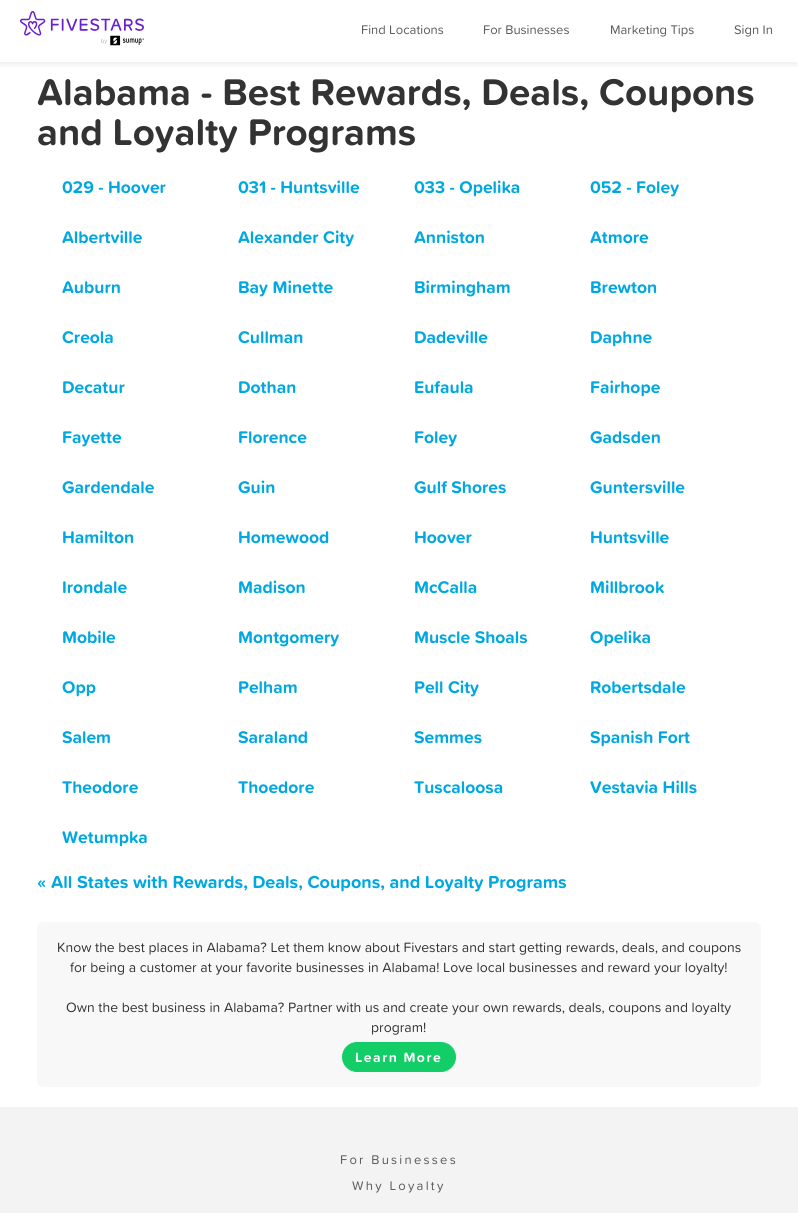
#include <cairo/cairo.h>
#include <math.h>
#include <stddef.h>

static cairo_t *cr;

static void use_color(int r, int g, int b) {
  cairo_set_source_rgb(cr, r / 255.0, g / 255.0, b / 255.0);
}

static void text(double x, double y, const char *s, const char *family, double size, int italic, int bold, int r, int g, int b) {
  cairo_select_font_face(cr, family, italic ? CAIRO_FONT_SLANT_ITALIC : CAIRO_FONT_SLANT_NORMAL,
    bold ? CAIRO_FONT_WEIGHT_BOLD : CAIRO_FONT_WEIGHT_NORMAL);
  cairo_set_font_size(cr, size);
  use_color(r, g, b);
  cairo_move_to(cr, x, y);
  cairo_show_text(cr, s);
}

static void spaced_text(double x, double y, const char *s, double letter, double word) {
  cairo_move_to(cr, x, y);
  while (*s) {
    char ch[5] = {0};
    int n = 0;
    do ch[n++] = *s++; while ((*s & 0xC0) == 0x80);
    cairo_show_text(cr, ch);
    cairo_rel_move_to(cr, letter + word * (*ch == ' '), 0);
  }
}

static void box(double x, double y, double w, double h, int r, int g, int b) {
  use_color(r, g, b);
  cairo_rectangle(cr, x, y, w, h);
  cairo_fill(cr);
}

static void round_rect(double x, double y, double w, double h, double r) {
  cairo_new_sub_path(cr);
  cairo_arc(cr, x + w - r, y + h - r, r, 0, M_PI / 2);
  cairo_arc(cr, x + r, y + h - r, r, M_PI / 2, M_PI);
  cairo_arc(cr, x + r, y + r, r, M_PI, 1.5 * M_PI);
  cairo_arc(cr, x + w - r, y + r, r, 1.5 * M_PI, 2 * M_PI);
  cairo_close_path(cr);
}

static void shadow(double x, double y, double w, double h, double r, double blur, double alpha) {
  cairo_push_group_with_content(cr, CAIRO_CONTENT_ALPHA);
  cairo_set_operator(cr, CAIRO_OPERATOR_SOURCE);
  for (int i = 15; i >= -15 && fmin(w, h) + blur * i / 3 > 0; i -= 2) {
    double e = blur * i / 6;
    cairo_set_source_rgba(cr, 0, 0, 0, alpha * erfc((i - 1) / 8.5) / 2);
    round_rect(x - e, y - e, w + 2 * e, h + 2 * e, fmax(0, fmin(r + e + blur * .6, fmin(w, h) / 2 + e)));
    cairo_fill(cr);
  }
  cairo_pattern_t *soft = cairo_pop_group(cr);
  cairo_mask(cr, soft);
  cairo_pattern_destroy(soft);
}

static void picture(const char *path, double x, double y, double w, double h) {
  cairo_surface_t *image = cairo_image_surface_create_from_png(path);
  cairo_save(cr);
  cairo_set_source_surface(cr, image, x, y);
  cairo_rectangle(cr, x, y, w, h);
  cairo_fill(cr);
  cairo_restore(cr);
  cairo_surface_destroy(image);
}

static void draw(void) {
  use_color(255, 255, 255);
  cairo_paint(cr);
  cairo_save(cr);
  cairo_rectangle(cr, 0, 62, 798, 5);
  cairo_clip(cr);
  use_color(0, 0, 0);
  shadow(0, 1, 798, 62, 0, 5, 0.1);
  cairo_restore(cr);
  picture("img_01.png", 20, 11, 124, 35);
  use_color(248, 248, 248);
  round_rect(37, 922, 724, 165, 6);
  cairo_fill(cr);
  use_color(19, 206, 102);
  round_rect(342.5, 1042.5, 113, 29, 14.5);
  cairo_fill_preserve(cr);
  cairo_set_line_width(cr, 1);
  cairo_stroke(cr);
  box(0, 1107, 798, 106, 243, 243, 243);
  text(361, 34, "Find Locations", "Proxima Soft", 13, 0, 0, 89, 89, 89);
  text(483, 34, "For Businesses", "Proxima Soft", 13, 0, 0, 89, 89, 89);
  text(610, 34, "Marketing Tips", "Proxima Soft", 13, 0, 0, 89, 89, 89);
  text(734, 34, "Sign In", "Proxima Soft", 13, 0, 0, 89, 89, 89);
  text(37, 105, "Alabama - Best Rewards, Deals, Coupons", "Proxima Soft", 38.5, 0, 1, 51, 51, 51);
  text(37, 145, "and Loyalty Programs", "Proxima Soft", 38.5, 0, 1, 51, 51, 51);
  text(62, 193, "029 - Hoover", "Proxima Soft", 17.5, 0, 1, 0, 168, 226);
  text(238, 193, "031 - Huntsville", "Proxima Soft", 17.5, 0, 1, 0, 168, 226);
  text(414, 193, "033 - Opelika", "Proxima Soft", 17.5, 0, 1, 0, 168, 226);
  text(590, 193, "052 - Foley", "Proxima Soft", 17.5, 0, 1, 0, 168, 226);
  text(62, 243, "Albertville", "Proxima Soft", 17.5, 0, 1, 0, 168, 226);
  text(238, 243, "Alexander City", "Proxima Soft", 17.5, 0, 1, 0, 168, 226);
  text(414, 243, "Anniston", "Proxima Soft", 17.5, 0, 1, 0, 168, 226);
  text(590, 243, "Atmore", "Proxima Soft", 17.5, 0, 1, 0, 168, 226);
  text(62, 293, "Auburn", "Proxima Soft", 17.5, 0, 1, 0, 168, 226);
  text(238, 293, "Bay Minette", "Proxima Soft", 17.5, 0, 1, 0, 168, 226);
  text(414, 293, "Birmingham", "Proxima Soft", 17.5, 0, 1, 0, 168, 226);
  text(590, 293, "Brewton", "Proxima Soft", 17.5, 0, 1, 0, 168, 226);
  text(62, 343, "Creola", "Proxima Soft", 17.5, 0, 1, 0, 168, 226);
  text(238, 343, "Cullman", "Proxima Soft", 17.5, 0, 1, 0, 168, 226);
  text(414, 343, "Dadeville", "Proxima Soft", 17.5, 0, 1, 0, 168, 226);
  text(590, 343, "Daphne", "Proxima Soft", 17.5, 0, 1, 0, 168, 226);
  text(62, 393, "Decatur", "Proxima Soft", 17.5, 0, 1, 0, 168, 226);
  text(238, 393, "Dothan", "Proxima Soft", 17.5, 0, 1, 0, 168, 226);
  text(414, 393, "Eufaula", "Proxima Soft", 17.5, 0, 1, 0, 168, 226);
  text(590, 393, "Fairhope", "Proxima Soft", 17.5, 0, 1, 0, 168, 226);
  text(62, 443, "Fayette", "Proxima Soft", 17.5, 0, 1, 0, 168, 226);
  text(238, 443, "Florence", "Proxima Soft", 17.5, 0, 1, 0, 168, 226);
  text(414, 443, "Foley", "Proxima Soft", 17.5, 0, 1, 0, 168, 226);
  text(590, 443, "Gadsden", "Proxima Soft", 17.5, 0, 1, 0, 168, 226);
  text(62, 493, "Gardendale", "Proxima Soft", 17.5, 0, 1, 0, 168, 226);
  text(238, 493, "Guin", "Proxima Soft", 17.5, 0, 1, 0, 168, 226);
  text(414, 493, "Gulf Shores", "Proxima Soft", 17.5, 0, 1, 0, 168, 226);
  text(590, 493, "Guntersville", "Proxima Soft", 17.5, 0, 1, 0, 168, 226);
  text(62, 543, "Hamilton", "Proxima Soft", 17.5, 0, 1, 0, 168, 226);
  text(238, 543, "Homewood", "Proxima Soft", 17.5, 0, 1, 0, 168, 226);
  text(414, 543, "Hoover", "Proxima Soft", 17.5, 0, 1, 0, 168, 226);
  text(590, 543, "Huntsville", "Proxima Soft", 17.5, 0, 1, 0, 168, 226);
  text(62, 593, "Irondale", "Proxima Soft", 17.5, 0, 1, 0, 168, 226);
  text(238, 593, "Madison", "Proxima Soft", 17.5, 0, 1, 0, 168, 226);
  text(414, 593, "McCalla", "Proxima Soft", 17.5, 0, 1, 0, 168, 226);
  text(590, 593, "Millbrook", "Proxima Soft", 17.5, 0, 1, 0, 168, 226);
  text(62, 643, "Mobile", "Proxima Soft", 17.5, 0, 1, 0, 168, 226);
  text(238, 643, "Montgomery", "Proxima Soft", 17.5, 0, 1, 0, 168, 226);
  text(414, 643, "Muscle Shoals", "Proxima Soft", 17.5, 0, 1, 0, 168, 226);
  text(590, 643, "Opelika", "Proxima Soft", 17.5, 0, 1, 0, 168, 226);
  text(62, 693, "Opp", "Proxima Soft", 17.5, 0, 1, 0, 168, 226);
  text(238, 693, "Pelham", "Proxima Soft", 17.5, 0, 1, 0, 168, 226);
  text(414, 693, "Pell City", "Proxima Soft", 17.5, 0, 1, 0, 168, 226);
  text(590, 693, "Robertsdale", "Proxima Soft", 17.5, 0, 1, 0, 168, 226);
  text(62, 743, "Salem", "Proxima Soft", 17.5, 0, 1, 0, 168, 226);
  text(238, 743, "Saraland", "Proxima Soft", 17.5, 0, 1, 0, 168, 226);
  text(414, 743, "Semmes", "Proxima Soft", 17.5, 0, 1, 0, 168, 226);
  text(590, 743, "Spanish Fort", "Proxima Soft", 17.5, 0, 1, 0, 168, 226);
  text(62, 793, "Theodore", "Proxima Soft", 17.5, 0, 1, 0, 168, 226);
  text(238, 793, "Thoedore", "Proxima Soft", 17.5, 0, 1, 0, 168, 226);
  text(414, 793, "Tuscaloosa", "Proxima Soft", 17.5, 0, 1, 0, 168, 226);
  text(590, 793, "Vestavia Hills", "Proxima Soft", 17.5, 0, 1, 0, 168, 226);
  text(62, 843, "Wetumpka", "Proxima Soft", 17.5, 0, 1, 0, 168, 226);
  text(37, 888, "« All States with Rewards, Deals, Coupons, and Loyalty Programs", "Proxima Soft", 18, 0, 1, 0, 168, 226);
  text(57, 952, "Know the best places in Alabama? Let them know about Fivestars and start getting rewards, deals, and coupons", "Proxima Soft", 14, 0, 0, 51, 51, 51);
  text(70, 972, "for being a customer at your favorite businesses in Alabama! Love local businesses and reward your loyalty!", "Proxima Soft", 14, 0, 0, 51, 51, 51);
  text(66, 1012, "Own the best business in Alabama? Partner with us and create your own rewards, deals, coupons and loyalty", "Proxima Soft", 14, 0, 0, 51, 51, 51);
  text(371, 1032, "program!", "Proxima Soft", 14, 0, 0, 51, 51, 51);
  cairo_select_font_face(cr, "Proxima Soft", CAIRO_FONT_SLANT_NORMAL, CAIRO_FONT_WEIGHT_BOLD);
  use_color(255, 255, 255);
  spaced_text(355, 1062, "Learn More", 1.5, 0);
  cairo_select_font_face(cr, "Proxima Soft", CAIRO_FONT_SLANT_NORMAL, CAIRO_FONT_WEIGHT_NORMAL);
  cairo_set_font_size(cr, 13);
  use_color(89, 89, 89);
  spaced_text(340, 1164, "For Businesses", 2.25, 0);
  spaced_text(352, 1190, "Why Loyalty", 2.25, 0);
}

int main(void) {
  cairo_surface_t *surface = cairo_image_surface_create(CAIRO_FORMAT_RGB24, 798, 1213);
  cr = cairo_create(surface);
  cairo_font_options_t *options = cairo_font_options_create();
  cairo_font_options_set_hint_metrics(options, CAIRO_HINT_METRICS_OFF);
  cairo_font_options_set_hint_style(options, CAIRO_HINT_STYLE_NONE);
  cairo_set_font_options(cr, options);
  cairo_set_miter_limit(cr, 4);
  draw();
  cairo_surface_write_to_png(surface, "out.png");
  cairo_font_options_destroy(options);
  cairo_destroy(cr);
  cairo_surface_destroy(surface);
  return 0;
}
